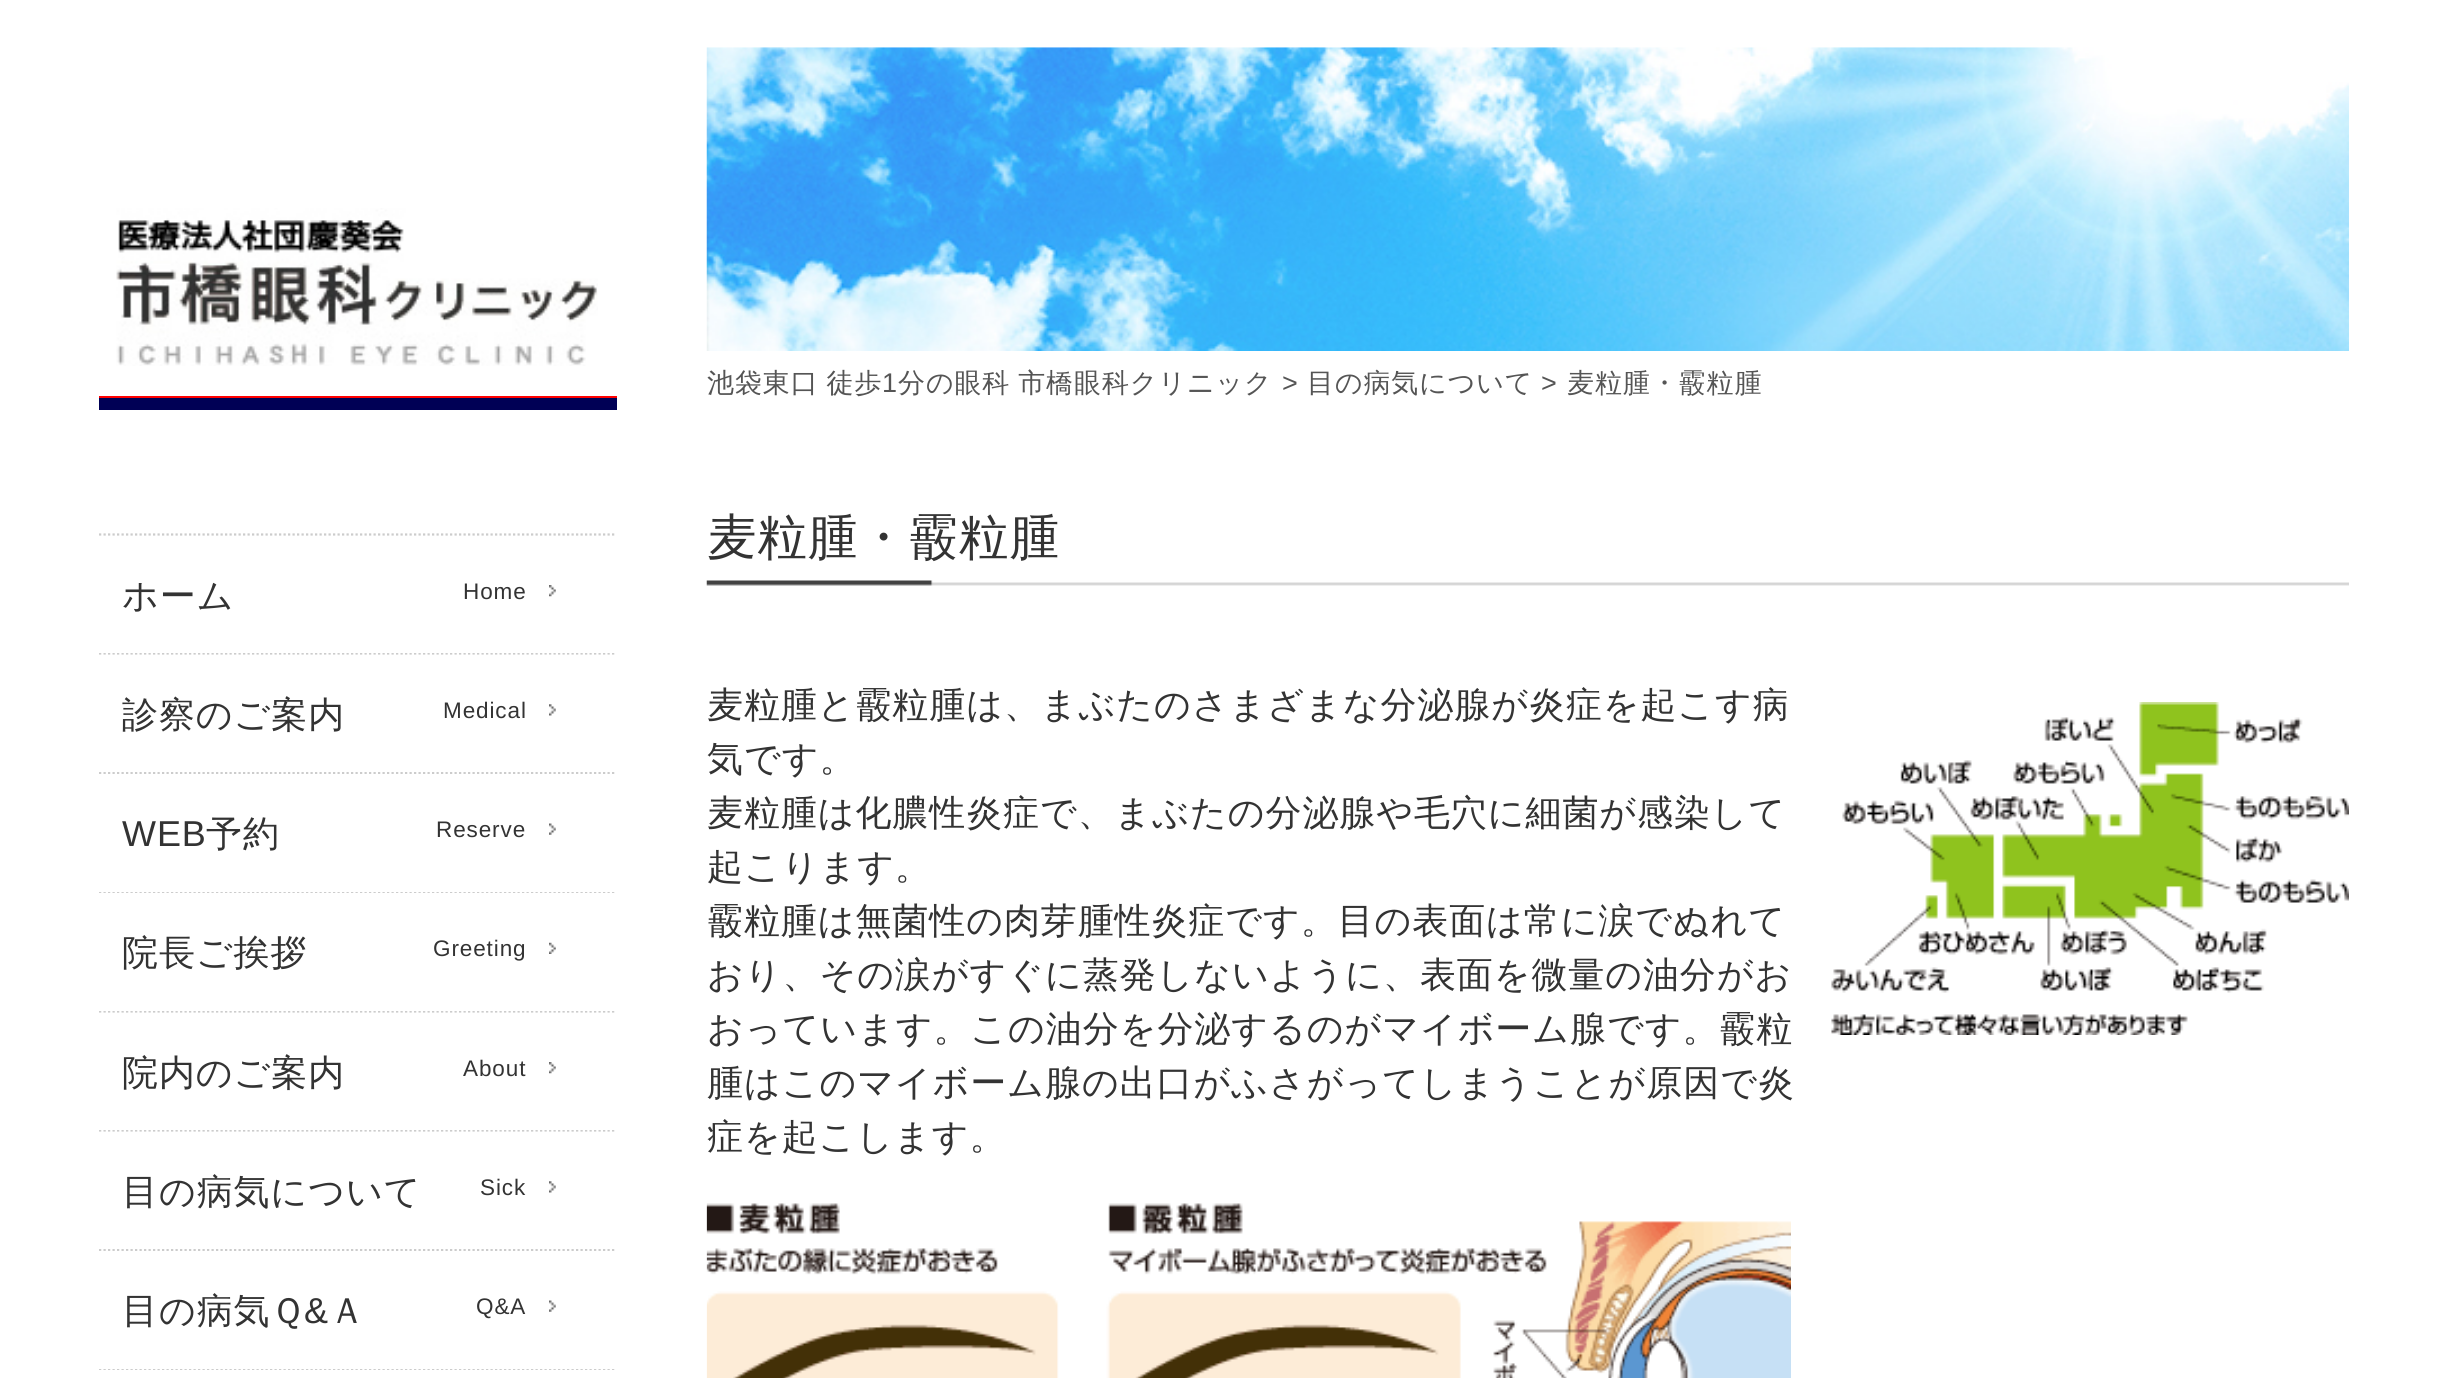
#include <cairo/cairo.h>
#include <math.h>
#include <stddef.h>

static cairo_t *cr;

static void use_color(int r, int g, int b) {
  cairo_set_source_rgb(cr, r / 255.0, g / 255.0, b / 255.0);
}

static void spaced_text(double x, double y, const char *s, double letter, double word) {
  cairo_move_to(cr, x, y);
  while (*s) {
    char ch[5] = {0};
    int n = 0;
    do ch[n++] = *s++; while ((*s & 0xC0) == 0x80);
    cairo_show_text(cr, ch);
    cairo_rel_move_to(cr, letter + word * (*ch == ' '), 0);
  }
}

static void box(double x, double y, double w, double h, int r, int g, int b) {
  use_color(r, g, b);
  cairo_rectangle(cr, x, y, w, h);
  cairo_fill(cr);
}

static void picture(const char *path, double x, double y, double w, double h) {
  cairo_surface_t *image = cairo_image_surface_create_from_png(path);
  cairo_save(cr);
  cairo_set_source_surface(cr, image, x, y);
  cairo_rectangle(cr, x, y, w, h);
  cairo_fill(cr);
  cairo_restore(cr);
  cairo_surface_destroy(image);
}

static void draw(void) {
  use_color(255, 255, 255);
  cairo_paint(cr);
  box(99, 398, 518, 12, 0, 0, 85);
  picture("img_01.png", 116, 208, 482, 158);
  box(99, 396, 518, 2, 255, 0, 0);
  cairo_new_path(cr);
  cairo_move_to(cr, 99, 534.5);
  cairo_line_to(cr, 616.5, 534.5);
  use_color(204, 204, 204);
  cairo_set_line_width(cr, 2.2);
  cairo_set_dash(cr, (double[]){2.25, 2.25}, 2, 0);
  cairo_stroke(cr);
  cairo_new_path(cr);
  cairo_move_to(cr, 99, 653.5);
  cairo_line_to(cr, 616.5, 653.5);
  cairo_stroke(cr);
  picture("img_02.png", 549, 585, 7, 12);
  box(99, 652, 518, 1, 255, 255, 255);
  cairo_new_path(cr);
  cairo_move_to(cr, 99, 773);
  cairo_line_to(cr, 616.5, 773);
  use_color(204, 204, 204);
  cairo_stroke(cr);
  picture("img_03.png", 549, 704, 7, 12);
  box(99, 771, 518, 1, 255, 255, 255);
  box(99, 774, 515, 1, 255, 255, 255);
  cairo_new_path(cr);
  cairo_move_to(cr, 99, 892);
  cairo_line_to(cr, 616.5, 892);
  use_color(204, 204, 204);
  cairo_stroke(cr);
  picture("img_04.png", 549, 823, 7, 12);
  box(99, 890, 518, 2, 255, 255, 255);
  box(99, 893, 515, 1, 255, 255, 255);
  cairo_new_path(cr);
  cairo_move_to(cr, 99, 1011.5);
  cairo_line_to(cr, 616.5, 1011.5);
  use_color(204, 204, 204);
  cairo_stroke(cr);
  picture("img_05.png", 549, 942, 7, 12);
  box(99, 1010, 518, 1, 255, 255, 255);
  cairo_new_path(cr);
  cairo_move_to(cr, 99, 1130.5);
  cairo_line_to(cr, 616.5, 1130.5);
  use_color(204, 204, 204);
  cairo_stroke(cr);
  picture("img_02.png", 549, 1062, 7, 12);
  box(99, 1129, 518, 1, 255, 255, 255);
  cairo_new_path(cr);
  cairo_move_to(cr, 99, 1250);
  cairo_line_to(cr, 616.5, 1250);
  use_color(204, 204, 204);
  cairo_stroke(cr);
  picture("img_03.png", 549, 1181, 7, 12);
  box(99, 1248, 518, 1, 255, 255, 255);
  box(99, 1251, 515, 1, 255, 255, 255);
  cairo_new_path(cr);
  cairo_move_to(cr, 99, 1369);
  cairo_line_to(cr, 616.5, 1369);
  use_color(204, 204, 204);
  cairo_stroke(cr);
  picture("img_04.png", 549, 1300, 7, 12);
  box(99, 1367, 518, 2, 255, 255, 255);
  box(99, 1370, 518, 1, 255, 255, 255);
  picture("img_06.png", 706, 47, 1643, 304);
  picture("img_07.png", 706, 580, 1643, 6);
  picture("img_08.png", 1831, 702, 518, 333);
  picture("img_09.png", 706, 1203, 1085, 175);
  cairo_select_font_face(cr, "WenQuanYi Zen Hei Medium", CAIRO_FONT_SLANT_NORMAL, CAIRO_FONT_WEIGHT_NORMAL);
  cairo_set_font_size(cr, 36);
  use_color(51, 51, 51);
  spaced_text(122, 608, "ホーム", 0.9, 0);
  cairo_select_font_face(cr, "Liberation Sans", CAIRO_FONT_SLANT_NORMAL, CAIRO_FONT_WEIGHT_NORMAL);
  cairo_set_font_size(cr, 22.5);
  spaced_text(463, 599, "Home", 0.9, 0);
  cairo_select_font_face(cr, "WenQuanYi Zen Hei Medium", CAIRO_FONT_SLANT_NORMAL, CAIRO_FONT_WEIGHT_NORMAL);
  cairo_set_font_size(cr, 36);
  spaced_text(122, 727, "診察のご案内", 0.9, 0);
  cairo_select_font_face(cr, "Liberation Sans", CAIRO_FONT_SLANT_NORMAL, CAIRO_FONT_WEIGHT_NORMAL);
  cairo_set_font_size(cr, 22.5);
  spaced_text(443, 718, "Medical", 0.9, 0);
  cairo_set_font_size(cr, 36);
  spaced_text(122, 846, "WEB", 0.9, 0);
  cairo_select_font_face(cr, "WenQuanYi Zen Hei Medium", CAIRO_FONT_SLANT_NORMAL, CAIRO_FONT_WEIGHT_NORMAL);
  spaced_text(206, 846, "予約", 0.9, 0);
  cairo_select_font_face(cr, "Liberation Sans", CAIRO_FONT_SLANT_NORMAL, CAIRO_FONT_WEIGHT_NORMAL);
  cairo_set_font_size(cr, 22.5);
  spaced_text(436, 837, "Reserve", 0.9, 0);
  cairo_select_font_face(cr, "WenQuanYi Zen Hei Medium", CAIRO_FONT_SLANT_NORMAL, CAIRO_FONT_WEIGHT_NORMAL);
  cairo_set_font_size(cr, 36);
  spaced_text(122, 965, "院長ご挨拶", 0.9, 0);
  cairo_select_font_face(cr, "Liberation Sans", CAIRO_FONT_SLANT_NORMAL, CAIRO_FONT_WEIGHT_NORMAL);
  cairo_set_font_size(cr, 22.5);
  spaced_text(433, 956, "Greeting", 0.9, 0);
  cairo_select_font_face(cr, "WenQuanYi Zen Hei Medium", CAIRO_FONT_SLANT_NORMAL, CAIRO_FONT_WEIGHT_NORMAL);
  cairo_set_font_size(cr, 36);
  spaced_text(122, 1085, "院内のご案内", 0.9, 0);
  cairo_select_font_face(cr, "Liberation Sans", CAIRO_FONT_SLANT_NORMAL, CAIRO_FONT_WEIGHT_NORMAL);
  cairo_set_font_size(cr, 22.5);
  spaced_text(463, 1076, "About", 0.9, 0);
  cairo_select_font_face(cr, "WenQuanYi Zen Hei Medium", CAIRO_FONT_SLANT_NORMAL, CAIRO_FONT_WEIGHT_NORMAL);
  cairo_set_font_size(cr, 36);
  spaced_text(122, 1204, "目の病気について", 0.9, 0);
  cairo_select_font_face(cr, "Liberation Sans", CAIRO_FONT_SLANT_NORMAL, CAIRO_FONT_WEIGHT_NORMAL);
  cairo_set_font_size(cr, 22.5);
  spaced_text(480, 1195, "Sick", 0.9, 0);
  cairo_select_font_face(cr, "WenQuanYi Zen Hei Medium", CAIRO_FONT_SLANT_NORMAL, CAIRO_FONT_WEIGHT_NORMAL);
  cairo_set_font_size(cr, 36);
  spaced_text(122, 1323, "目の病気Ｑ", 0.9, 0);
  cairo_select_font_face(cr, "Liberation Sans", CAIRO_FONT_SLANT_NORMAL, CAIRO_FONT_WEIGHT_NORMAL);
  spaced_text(304, 1323, "&", 0.9, 0);
  cairo_select_font_face(cr, "WenQuanYi Zen Hei Medium", CAIRO_FONT_SLANT_NORMAL, CAIRO_FONT_WEIGHT_NORMAL);
  spaced_text(329, 1323, "Ａ", 0.9, 0);
  cairo_select_font_face(cr, "Liberation Sans", CAIRO_FONT_SLANT_NORMAL, CAIRO_FONT_WEIGHT_NORMAL);
  cairo_set_font_size(cr, 22.5);
  spaced_text(476, 1314, "Q&A", 0.9, 0);
  cairo_select_font_face(cr, "WenQuanYi Zen Hei Medium", CAIRO_FONT_SLANT_NORMAL, CAIRO_FONT_WEIGHT_NORMAL);
  cairo_set_font_size(cr, 27);
  use_color(85, 85, 85);
  spaced_text(707, 392, "池袋東口 徒歩", 0.9, -1);
  cairo_select_font_face(cr, "Liberation Sans", CAIRO_FONT_SLANT_NORMAL, CAIRO_FONT_WEIGHT_NORMAL);
  spaced_text(882, 392, "1", 0.9, 0);
  cairo_select_font_face(cr, "WenQuanYi Zen Hei Medium", CAIRO_FONT_SLANT_NORMAL, CAIRO_FONT_WEIGHT_NORMAL);
  spaced_text(898, 392, "分の眼科 市橋眼科クリニック", 0.9, -1);
  cairo_select_font_face(cr, "Liberation Sans", CAIRO_FONT_SLANT_NORMAL, CAIRO_FONT_WEIGHT_NORMAL);
  spaced_text(1282, 392, ">", 0.9, 0);
  cairo_select_font_face(cr, "WenQuanYi Zen Hei Medium", CAIRO_FONT_SLANT_NORMAL, CAIRO_FONT_WEIGHT_NORMAL);
  spaced_text(1307, 392, "目の病気について", 0.9, 0);
  cairo_select_font_face(cr, "Liberation Sans", CAIRO_FONT_SLANT_NORMAL, CAIRO_FONT_WEIGHT_NORMAL);
  spaced_text(1541, 392, ">", 0.9, 0);
  cairo_select_font_face(cr, "WenQuanYi Zen Hei Medium", CAIRO_FONT_SLANT_NORMAL, CAIRO_FONT_WEIGHT_NORMAL);
  spaced_text(1567, 392, "麦粒腫・霰粒腫", 0.9, 0);
  cairo_set_font_size(cr, 49.5);
  use_color(51, 51, 51);
  spaced_text(707, 554, "麦粒腫・霰粒腫", 0.9, 0);
  cairo_set_font_size(cr, 36);
  spaced_text(707, 717, "麦粒腫と霰粒腫は、まぶたのさまざまな分泌腺が炎症を起こす病", 0.9, 0);
  spaced_text(707, 771, "気です。", 0.9, 0);
  spaced_text(707, 825, "麦粒腫は化膿性炎症で、まぶたの分泌腺や毛穴に細菌が感染して", 0.9, 0);
  spaced_text(707, 879, "起こります。", 0.9, 0);
  spaced_text(707, 933, "霰粒腫は無菌性の肉芽腫性炎症です。目の表面は常に涙でぬれて", 0.9, 0);
  spaced_text(707, 987, "おり、その涙がすぐに蒸発しないように、表面を微量の油分がお", 0.9, 0);
  spaced_text(707, 1041, "おっています。この油分を分泌するのがマイボーム腺です。霰粒", 0.9, 0);
  spaced_text(707, 1095, "腫はこのマイボーム腺の出口がふさがってしまうことが原因で炎", 0.9, 0);
  spaced_text(707, 1149, "症を起こします。", 0.9, 0);
}

int main(void) {
  cairo_surface_t *surface = cairo_image_surface_create(CAIRO_FORMAT_RGB24, 2448, 1378);
  cr = cairo_create(surface);
  cairo_font_options_t *options = cairo_font_options_create();
  cairo_font_options_set_hint_metrics(options, CAIRO_HINT_METRICS_OFF);
  cairo_font_options_set_hint_style(options, CAIRO_HINT_STYLE_NONE);
  cairo_set_font_options(cr, options);
  cairo_set_miter_limit(cr, 4);
  draw();
  cairo_surface_write_to_png(surface, "out.png");
  cairo_font_options_destroy(options);
  cairo_destroy(cr);
  cairo_surface_destroy(surface);
  return 0;
}
